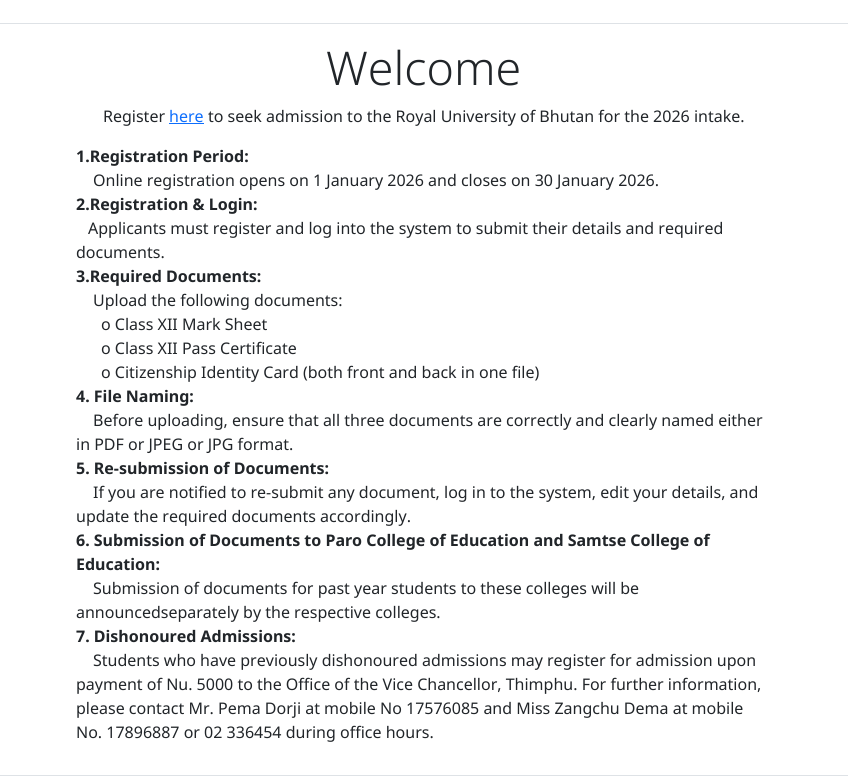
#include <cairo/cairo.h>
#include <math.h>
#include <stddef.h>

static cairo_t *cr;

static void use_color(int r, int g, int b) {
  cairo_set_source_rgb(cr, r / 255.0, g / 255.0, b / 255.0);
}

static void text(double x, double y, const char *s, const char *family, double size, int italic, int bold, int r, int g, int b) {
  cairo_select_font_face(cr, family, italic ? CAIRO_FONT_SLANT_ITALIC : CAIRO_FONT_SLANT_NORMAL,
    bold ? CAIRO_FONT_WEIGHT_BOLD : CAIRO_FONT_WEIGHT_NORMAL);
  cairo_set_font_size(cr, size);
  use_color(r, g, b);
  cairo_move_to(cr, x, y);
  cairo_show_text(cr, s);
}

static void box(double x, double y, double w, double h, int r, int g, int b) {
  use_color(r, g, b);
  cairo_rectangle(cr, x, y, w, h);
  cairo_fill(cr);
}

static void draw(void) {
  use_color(255, 255, 255);
  cairo_paint(cr);
  box(0, 23, 848, 1, 222, 226, 230);
  box(169, 123, 35, 1, 13, 110, 253);
  box(0, 775, 848, 1, 222, 226, 230);
  text(326, 85, "Welcome", "Noto Sans Light", 46.5, 0, 0, 33, 37, 41);
  text(103, 122, "Register", "Noto Sans", 16, 0, 0, 33, 37, 41);
  text(169, 122, "here", "Noto Sans", 16, 0, 0, 13, 110, 253);
  text(208, 122, "to seek admission to the Royal University of Bhutan for the 2026 intake.", "Noto Sans", 16, 0, 0, 33, 37, 41);
  text(76, 162, "1.Registration Period:", "Noto Sans", 16, 0, 1, 33, 37, 41);
  text(93, 186, "Online registration opens on 1 January 2026 and closes on 30 January 2026.", "Noto Sans", 16, 0, 0, 33, 37, 41);
  text(76, 210, "2.Registration & Login:", "Noto Sans", 16, 0, 1, 33, 37, 41);
  text(88, 234, "Applicants must register and log into the system to submit their details and required", "Noto Sans", 16, 0, 0, 33, 37, 41);
  text(76, 258, "documents.", "Noto Sans", 16, 0, 0, 33, 37, 41);
  text(76, 282, "3.Required Documents:", "Noto Sans", 16, 0, 1, 33, 37, 41);
  text(93, 306, "Upload the following documents:", "Noto Sans", 16, 0, 0, 33, 37, 41);
  text(101, 330, "o Class XII Mark Sheet", "Noto Sans", 16, 0, 0, 33, 37, 41);
  text(101, 354, "o Class XII Pass Certificate", "Noto Sans", 16, 0, 0, 33, 37, 41);
  text(101, 378, "o Citizenship Identity Card (both front and back in one file)", "Noto Sans", 16, 0, 0, 33, 37, 41);
  text(76, 402, "4. File Naming:", "Noto Sans", 16, 0, 1, 33, 37, 41);
  text(93, 426, "Before uploading, ensure that all three documents are correctly and clearly named either", "Noto Sans", 16, 0, 0, 33, 37, 41);
  text(76, 450, "in PDF or JPEG or JPG format.", "Noto Sans", 16, 0, 0, 33, 37, 41);
  text(76, 474, "5. Re-submission of Documents:", "Noto Sans", 16, 0, 1, 33, 37, 41);
  text(93, 498, "If you are notified to re-submit any document, log in to the system, edit your details, and", "Noto Sans", 16, 0, 0, 33, 37, 41);
  text(76, 522, "update the required documents accordingly.", "Noto Sans", 16, 0, 0, 33, 37, 41);
  text(76, 546, "6. Submission of Documents to Paro College of Education and Samtse College of", "Noto Sans", 16, 0, 1, 33, 37, 41);
  text(76, 570, "Education:", "Noto Sans", 16, 0, 1, 33, 37, 41);
  text(93, 594, "Submission of documents for past year students to these colleges will be", "Noto Sans", 16, 0, 0, 33, 37, 41);
  text(76, 618, "announcedseparately by the respective colleges.", "Noto Sans", 16, 0, 0, 33, 37, 41);
  text(76, 642, "7. Dishonoured Admissions:", "Noto Sans", 16, 0, 1, 33, 37, 41);
  text(93, 666, "Students who have previously dishonoured admissions may register for admission upon", "Noto Sans", 16, 0, 0, 33, 37, 41);
  text(76, 690, "payment of Nu. 5000 to the Office of the Vice Chancellor, Thimphu. For further information,", "Noto Sans", 16, 0, 0, 33, 37, 41);
  text(76, 714, "please contact Mr. Pema Dorji at mobile No 17576085 and Miss Zangchu Dema at mobile", "Noto Sans", 16, 0, 0, 33, 37, 41);
  text(76, 738, "No. 17896887 or 02 336454 during office hours.", "Noto Sans", 16, 0, 0, 33, 37, 41);
}

int main(void) {
  cairo_surface_t *surface = cairo_image_surface_create(CAIRO_FORMAT_RGB24, 848, 778);
  cr = cairo_create(surface);
  cairo_font_options_t *options = cairo_font_options_create();
  cairo_font_options_set_hint_metrics(options, CAIRO_HINT_METRICS_OFF);
  cairo_font_options_set_hint_style(options, CAIRO_HINT_STYLE_NONE);
  cairo_set_font_options(cr, options);
  cairo_set_miter_limit(cr, 4);
  draw();
  cairo_surface_write_to_png(surface, "out.png");
  cairo_font_options_destroy(options);
  cairo_destroy(cr);
  cairo_surface_destroy(surface);
  return 0;
}
